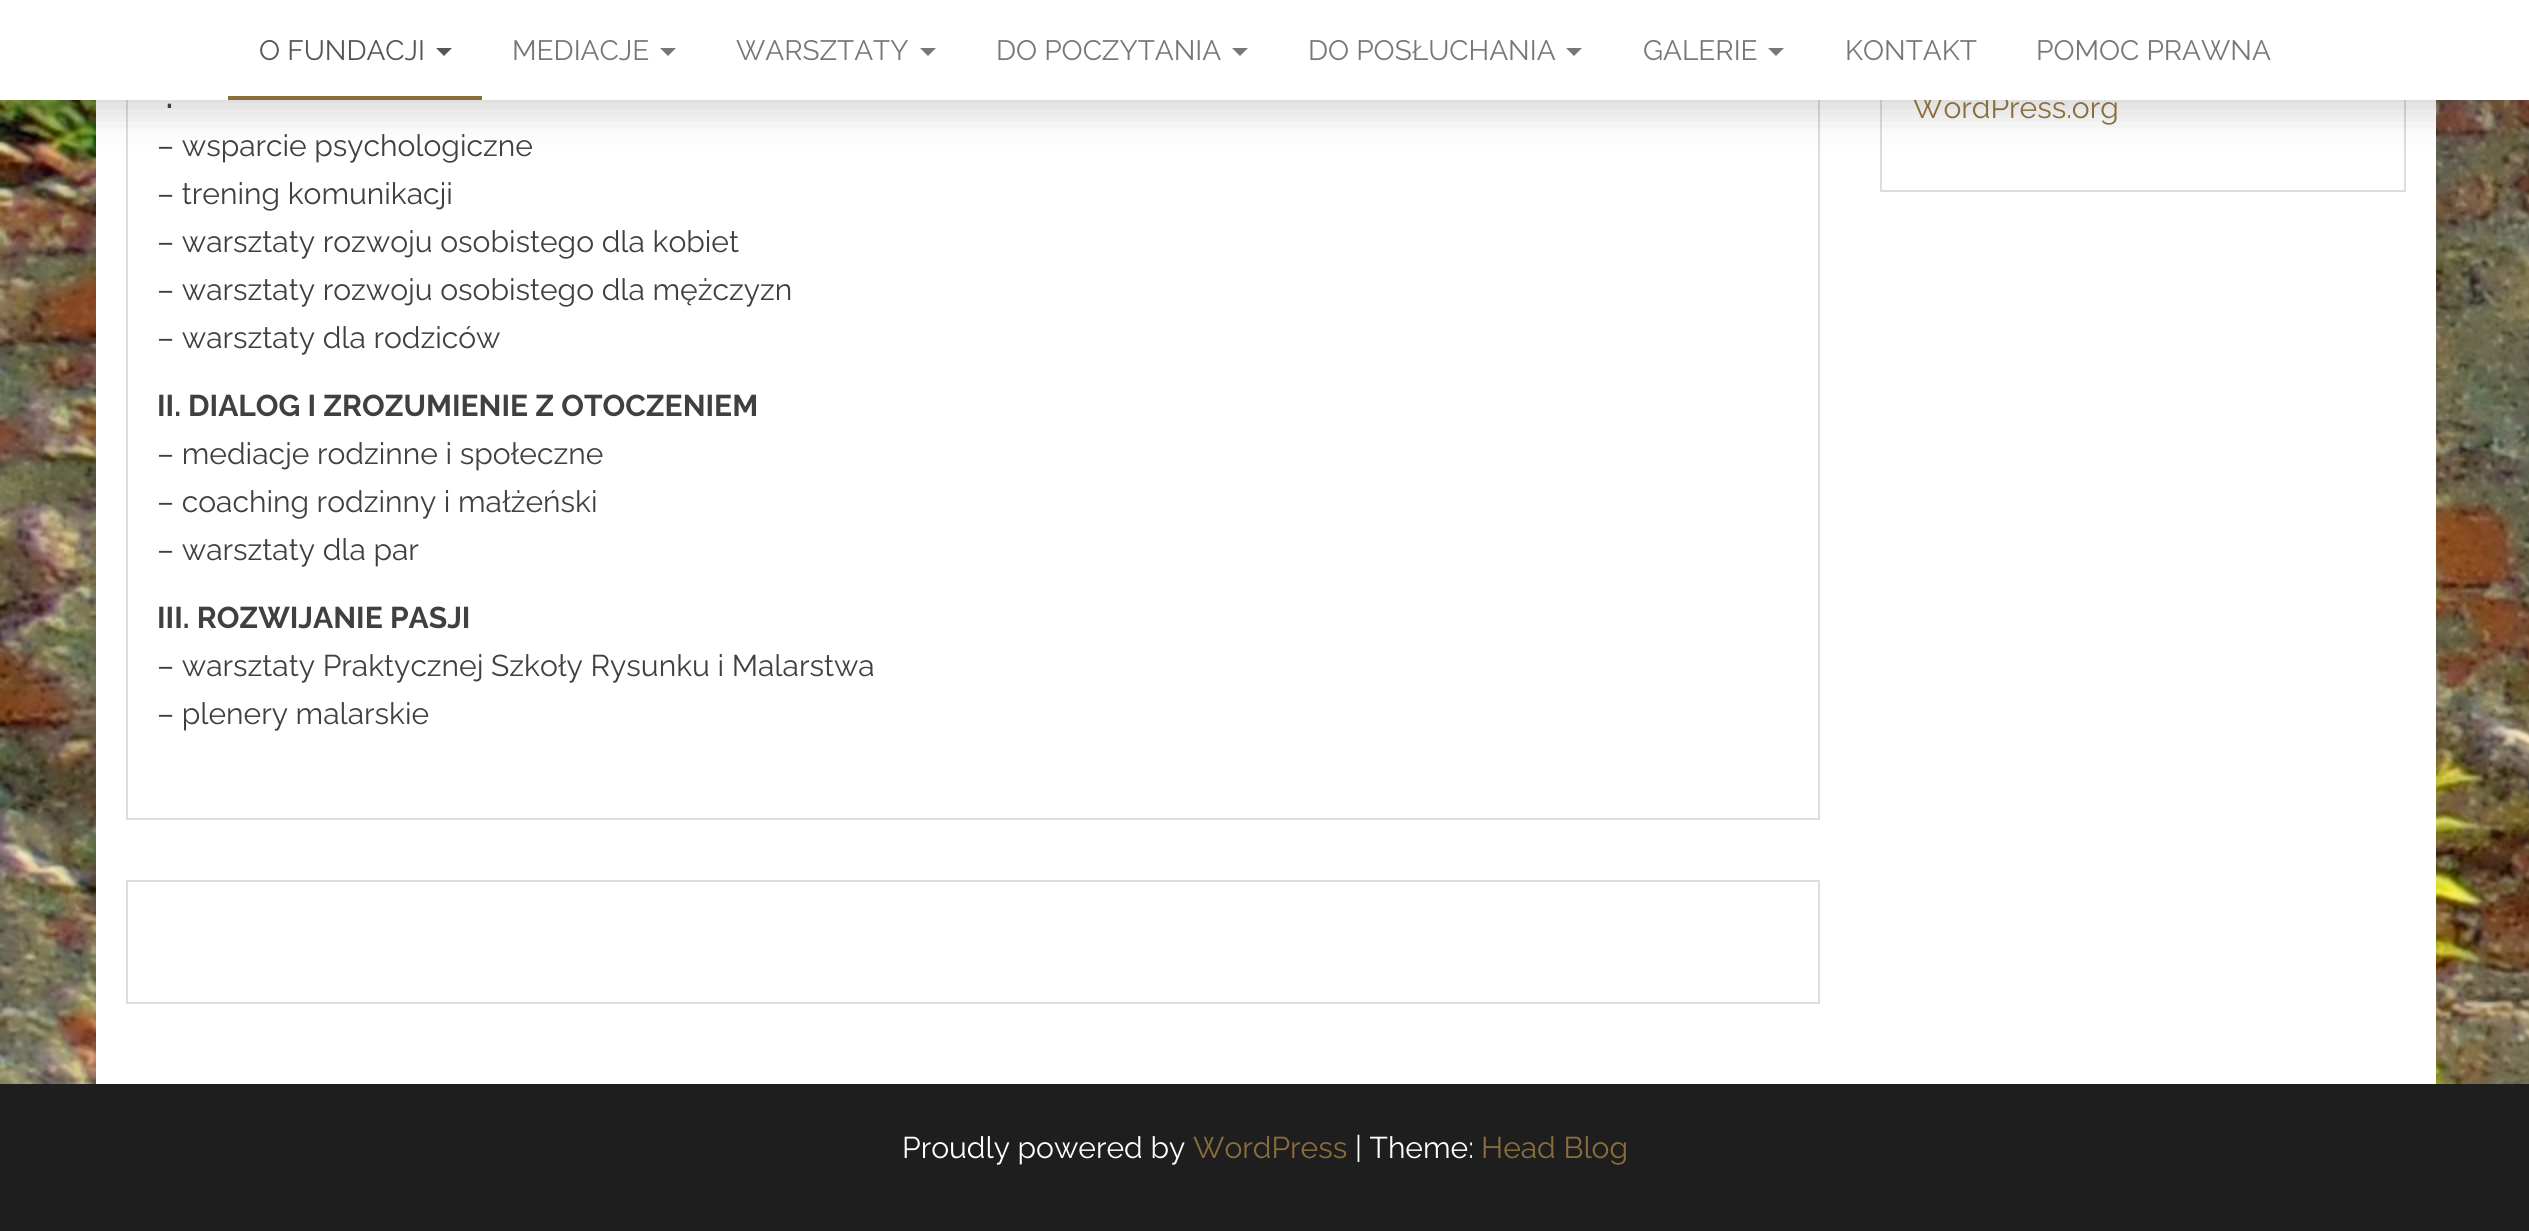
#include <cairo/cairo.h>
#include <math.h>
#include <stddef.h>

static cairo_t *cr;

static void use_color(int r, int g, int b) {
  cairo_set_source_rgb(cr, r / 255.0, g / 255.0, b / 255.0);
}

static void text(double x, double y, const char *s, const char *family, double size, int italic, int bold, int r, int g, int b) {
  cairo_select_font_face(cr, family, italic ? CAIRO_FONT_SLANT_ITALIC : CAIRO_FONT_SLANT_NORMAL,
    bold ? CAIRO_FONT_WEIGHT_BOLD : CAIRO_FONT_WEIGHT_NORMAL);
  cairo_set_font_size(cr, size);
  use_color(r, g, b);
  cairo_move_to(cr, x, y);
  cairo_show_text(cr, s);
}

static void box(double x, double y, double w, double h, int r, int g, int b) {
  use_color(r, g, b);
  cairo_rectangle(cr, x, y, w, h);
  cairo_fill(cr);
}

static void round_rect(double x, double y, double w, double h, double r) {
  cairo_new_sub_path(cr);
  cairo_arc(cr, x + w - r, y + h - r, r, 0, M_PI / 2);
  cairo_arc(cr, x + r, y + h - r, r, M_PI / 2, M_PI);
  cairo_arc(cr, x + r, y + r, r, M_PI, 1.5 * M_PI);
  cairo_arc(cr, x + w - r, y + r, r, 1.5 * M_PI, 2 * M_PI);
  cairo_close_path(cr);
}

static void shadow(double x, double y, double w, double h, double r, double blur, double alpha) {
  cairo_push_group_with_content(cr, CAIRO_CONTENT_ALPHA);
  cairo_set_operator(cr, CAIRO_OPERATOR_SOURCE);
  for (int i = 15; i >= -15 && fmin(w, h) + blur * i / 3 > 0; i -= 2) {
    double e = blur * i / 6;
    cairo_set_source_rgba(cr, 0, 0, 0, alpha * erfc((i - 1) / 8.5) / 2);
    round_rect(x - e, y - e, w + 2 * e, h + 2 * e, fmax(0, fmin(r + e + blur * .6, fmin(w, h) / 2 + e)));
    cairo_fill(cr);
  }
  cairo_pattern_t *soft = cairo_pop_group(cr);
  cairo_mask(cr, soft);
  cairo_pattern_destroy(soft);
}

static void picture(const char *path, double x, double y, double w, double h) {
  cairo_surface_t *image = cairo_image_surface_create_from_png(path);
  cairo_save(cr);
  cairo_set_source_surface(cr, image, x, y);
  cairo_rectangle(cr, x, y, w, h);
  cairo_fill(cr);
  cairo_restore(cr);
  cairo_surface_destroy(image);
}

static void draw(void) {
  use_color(255, 255, 255);
  cairo_paint(cr);
  picture("img_01.png", 0, 100, 2529, 984);
  box(96, 100, 2340, 984, 255, 255, 255);
  cairo_rectangle(cr, 127, -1, 1692, 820);
  use_color(221, 221, 221);
  cairo_stroke(cr);
  cairo_rectangle(cr, 1881, -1, 524, 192);
  cairo_stroke(cr);
  use_color(0, 0, 0);
  shadow(2, 16, 2526, 96, 0, 19, 0.17);
  cairo_rectangle(cr, 127, 881, 1692, 122);
  use_color(221, 221, 221);
  cairo_stroke(cr);
  box(0, 1084, 2529, 147, 30, 30, 30);
  text(166, 108, ".", "Raleway", 30, 0, 1, 64, 64, 64);
  text(157, 156, "– wsparcie psychologiczne", "Raleway", 30, 0, 0, 64, 64, 64);
  text(157, 204, "– trening komunikacji", "Raleway", 30, 0, 0, 64, 64, 64);
  text(157, 252, "– warsztaty rozwoju osobistego dla kobiet", "Raleway", 30, 0, 0, 64, 64, 64);
  text(157, 300, "– warsztaty rozwoju osobistego dla mężczyzn", "Raleway", 30, 0, 0, 64, 64, 64);
  text(157, 348, "– warsztaty dla rodziców", "Raleway", 30, 0, 0, 64, 64, 64);
  text(157, 416, "II. DIALOG I ZROZUMIENIE Z OTOCZENIEM", "Raleway", 30, 0, 1, 64, 64, 64);
  text(157, 464, "– mediacje rodzinne i społeczne", "Raleway", 30, 0, 0, 64, 64, 64);
  text(157, 512, "– coaching rodzinny i małżeński", "Raleway", 30, 0, 0, 64, 64, 64);
  text(157, 560, "– warsztaty dla par", "Raleway", 30, 0, 0, 64, 64, 64);
  text(157, 628, "III. ROZWIJANIE PASJI", "Raleway", 30, 0, 1, 64, 64, 64);
  text(157, 676, "– warsztaty Praktycznej Szkoły Rysunku i Malarstwa", "Raleway", 30, 0, 0, 64, 64, 64);
  text(157, 724, "– plenery malarskie", "Raleway", 30, 0, 0, 64, 64, 64);
  text(1912, 118, "WordPress.org", "Raleway", 30, 0, 0, 138, 109, 59);
  box(0, 0, 2529, 100, 255, 255, 255);
  text(2036, 60, "POMOC PRAWNA", "Raleway", 28, 0, 0, 119, 119, 119);
  text(1845, 60, "KONTAKT", "Raleway", 28, 0, 0, 119, 119, 119);
  cairo_new_path(cr);
  cairo_move_to(cr, 1768, 48);
  cairo_line_to(cr, 1784, 48);
  cairo_line_to(cr, 1776, 56);
  cairo_close_path(cr);
  cairo_fill(cr);
  text(1643, 60, "GALERIE", "Raleway", 28, 0, 0, 119, 119, 119);
  cairo_new_path(cr);
  cairo_move_to(cr, 1566, 48);
  cairo_line_to(cr, 1582, 48);
  cairo_line_to(cr, 1574, 56);
  cairo_close_path(cr);
  cairo_fill(cr);
  text(1308, 60, "DO POSŁUCHANIA", "Raleway", 28, 0, 0, 119, 119, 119);
  cairo_new_path(cr);
  cairo_move_to(cr, 1232, 48);
  cairo_line_to(cr, 1248, 48);
  cairo_line_to(cr, 1240, 56);
  cairo_close_path(cr);
  cairo_fill(cr);
  text(996, 60, "DO POCZYTANIA", "Raleway", 28, 0, 0, 119, 119, 119);
  cairo_new_path(cr);
  cairo_move_to(cr, 920, 48);
  cairo_line_to(cr, 936, 48);
  cairo_line_to(cr, 928, 56);
  cairo_close_path(cr);
  cairo_fill(cr);
  text(736, 60, "WARSZTATY", "Raleway", 28, 0, 0, 119, 119, 119);
  cairo_new_path(cr);
  cairo_move_to(cr, 660, 48);
  cairo_line_to(cr, 676, 48);
  cairo_line_to(cr, 668, 56);
  cairo_close_path(cr);
  cairo_fill(cr);
  text(512, 60, "MEDIACJE", "Raleway", 28, 0, 0, 119, 119, 119);
  box(228, 96, 254, 4, 138, 109, 59);
  use_color(85, 85, 85);
  cairo_new_path(cr);
  cairo_move_to(cr, 436, 48);
  cairo_line_to(cr, 452, 48);
  cairo_line_to(cr, 444, 56);
  cairo_close_path(cr);
  cairo_fill(cr);
  text(259, 60, "O FUNDACJI", "Raleway", 28, 0, 0, 85, 85, 85);
  text(902, 1158, "Proudly powered by", "Raleway", 30, 0, 0, 255, 255, 255);
  text(1193, 1158, "WordPress", "Raleway", 30, 0, 0, 138, 109, 59);
  text(1355, 1158, "| Theme:", "Raleway", 30, 0, 0, 255, 255, 255);
  text(1481, 1158, "Head Blog", "Raleway", 30, 0, 0, 138, 109, 59);
}

int main(void) {
  cairo_surface_t *surface = cairo_image_surface_create(CAIRO_FORMAT_RGB24, 2529, 1231);
  cr = cairo_create(surface);
  cairo_font_options_t *options = cairo_font_options_create();
  cairo_font_options_set_hint_metrics(options, CAIRO_HINT_METRICS_OFF);
  cairo_font_options_set_hint_style(options, CAIRO_HINT_STYLE_NONE);
  cairo_set_font_options(cr, options);
  cairo_set_miter_limit(cr, 4);
  draw();
  cairo_surface_write_to_png(surface, "out.png");
  cairo_font_options_destroy(options);
  cairo_destroy(cr);
  cairo_surface_destroy(surface);
  return 0;
}
